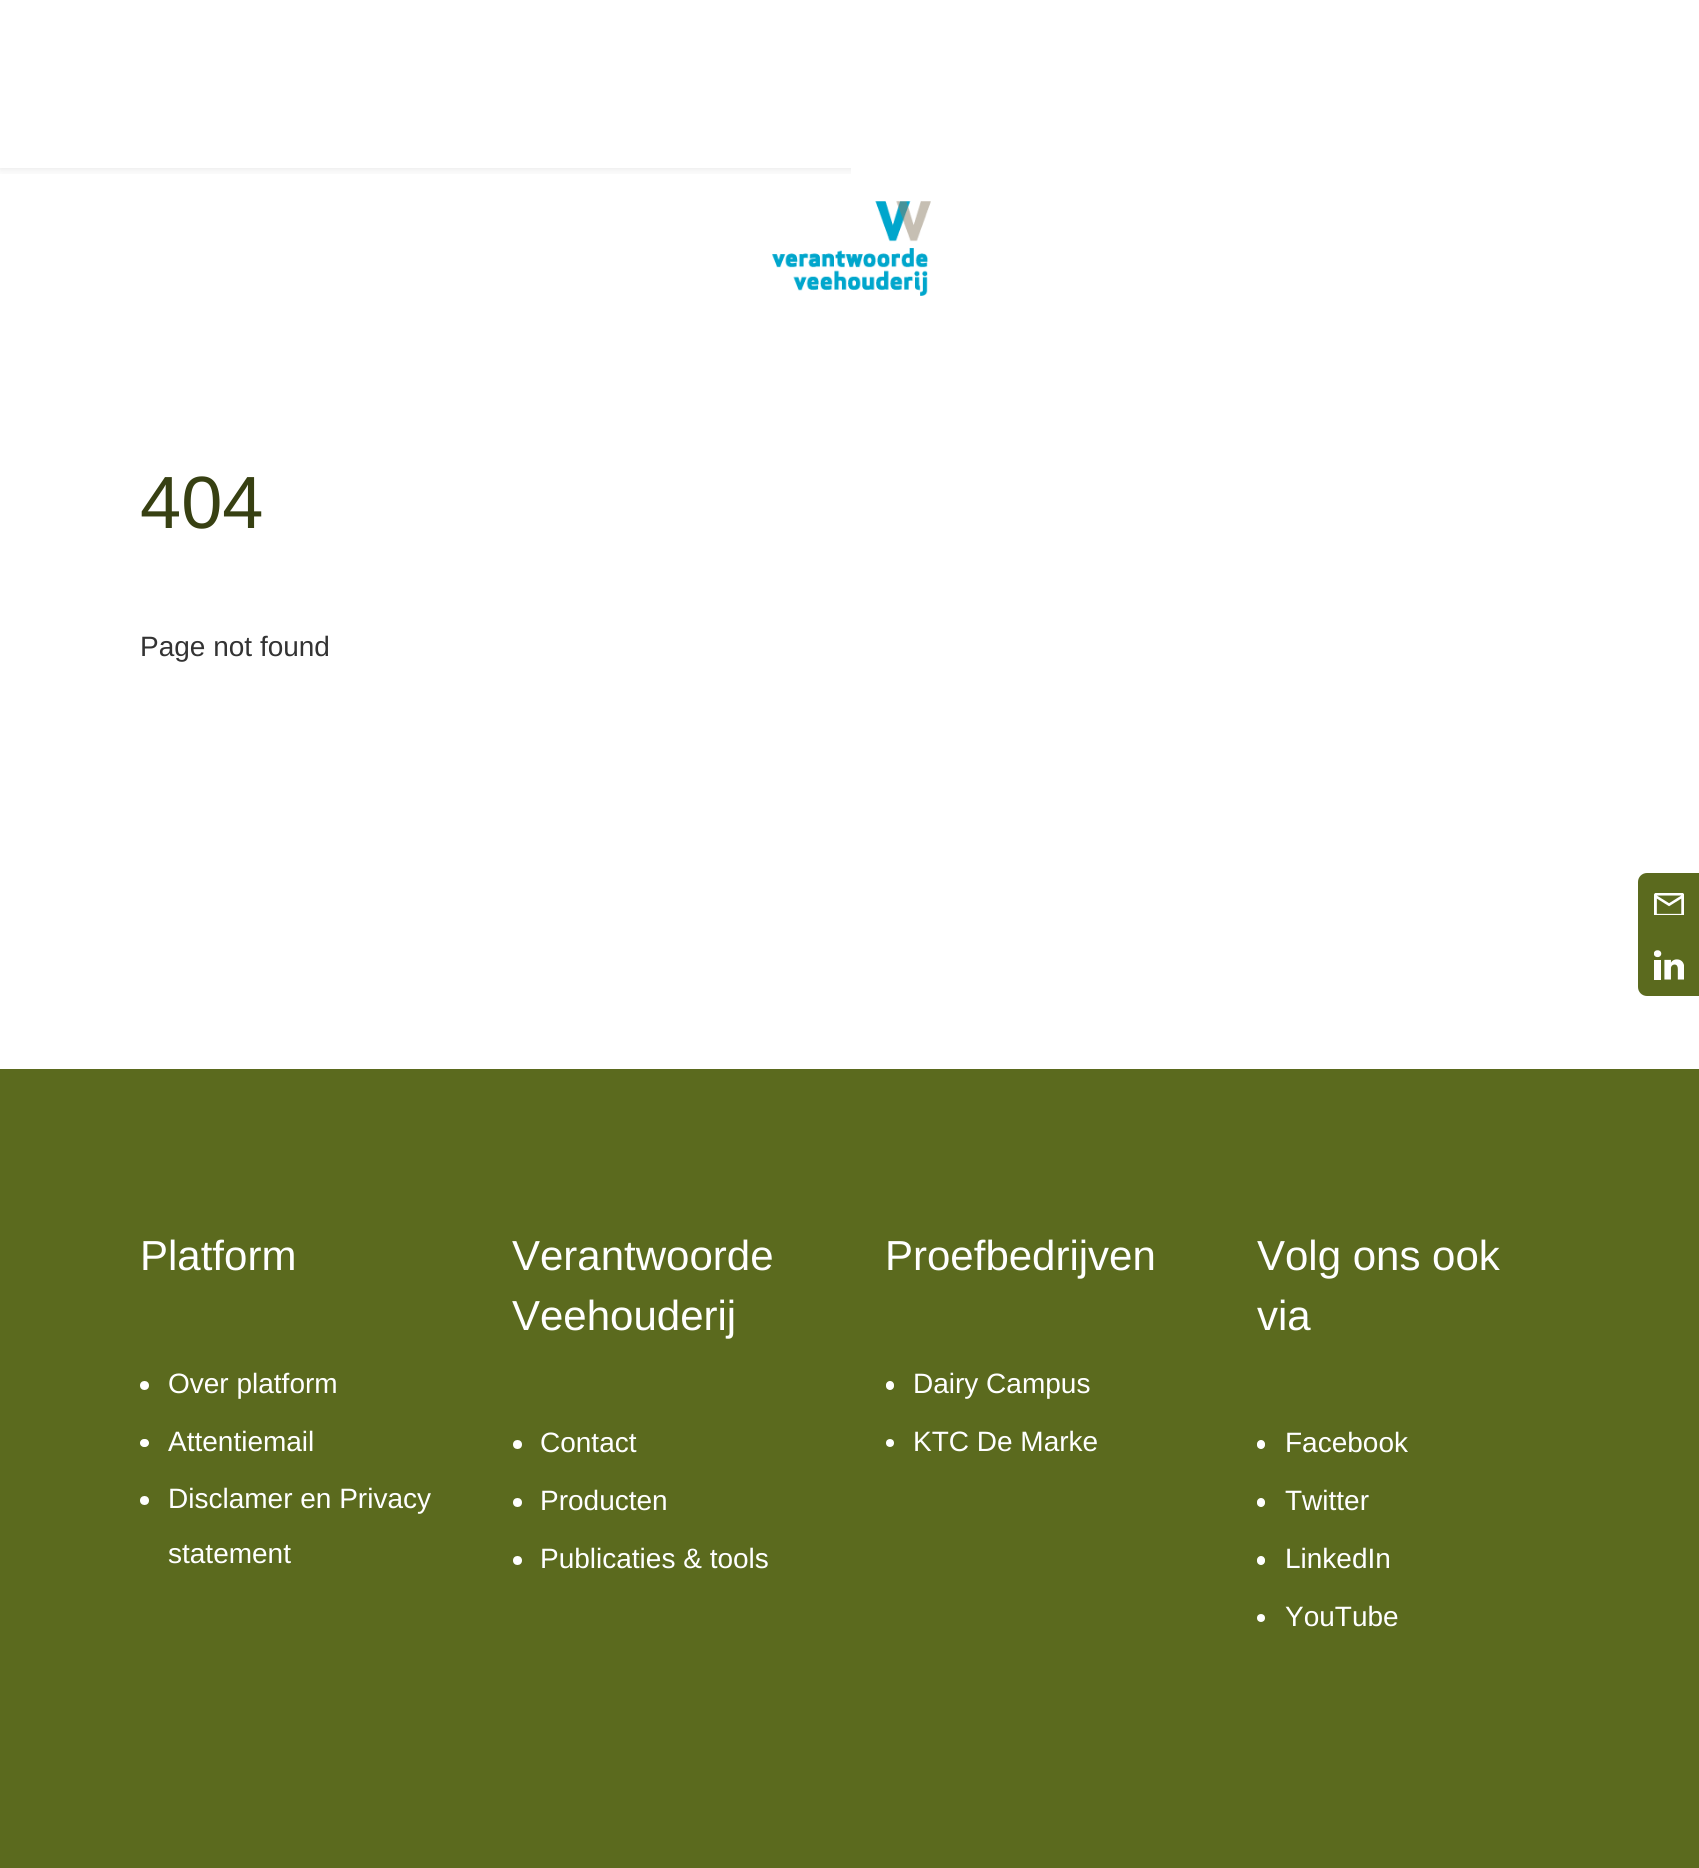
#include <cairo/cairo.h>
#include <math.h>
#include <stddef.h>

static cairo_t *cr;

static void use_color(int r, int g, int b) {
  cairo_set_source_rgb(cr, r / 255.0, g / 255.0, b / 255.0);
}

static void text(double x, double y, const char *s, const char *family, double size, int italic, int bold, int r, int g, int b) {
  cairo_select_font_face(cr, family, italic ? CAIRO_FONT_SLANT_ITALIC : CAIRO_FONT_SLANT_NORMAL,
    bold ? CAIRO_FONT_WEIGHT_BOLD : CAIRO_FONT_WEIGHT_NORMAL);
  cairo_set_font_size(cr, size);
  use_color(r, g, b);
  cairo_move_to(cr, x, y);
  cairo_show_text(cr, s);
}

static void box(double x, double y, double w, double h, int r, int g, int b) {
  use_color(r, g, b);
  cairo_rectangle(cr, x, y, w, h);
  cairo_fill(cr);
}

static void round_rect(double x, double y, double w, double h, double r) {
  cairo_new_sub_path(cr);
  cairo_arc(cr, x + w - r, y + h - r, r, 0, M_PI / 2);
  cairo_arc(cr, x + r, y + h - r, r, M_PI / 2, M_PI);
  cairo_arc(cr, x + r, y + r, r, M_PI, 1.5 * M_PI);
  cairo_arc(cr, x + w - r, y + r, r, 1.5 * M_PI, 2 * M_PI);
  cairo_close_path(cr);
}

static void shadow(double x, double y, double w, double h, double r, double blur, double alpha) {
  cairo_push_group_with_content(cr, CAIRO_CONTENT_ALPHA);
  cairo_set_operator(cr, CAIRO_OPERATOR_SOURCE);
  for (int i = 15; i >= -15 && fmin(w, h) + blur * i / 3 > 0; i -= 2) {
    double e = blur * i / 6;
    cairo_set_source_rgba(cr, 0, 0, 0, alpha * erfc((i - 1) / 8.5) / 2);
    round_rect(x - e, y - e, w + 2 * e, h + 2 * e, fmax(0, fmin(r + e + blur * .6, fmin(w, h) / 2 + e)));
    cairo_fill(cr);
  }
  cairo_pattern_t *soft = cairo_pop_group(cr);
  cairo_mask(cr, soft);
  cairo_pattern_destroy(soft);
}

static void picture(const char *path, double x, double y, double w, double h) {
  cairo_surface_t *image = cairo_image_surface_create_from_png(path);
  cairo_save(cr);
  cairo_set_source_surface(cr, image, x, y);
  cairo_rectangle(cr, x, y, w, h);
  cairo_fill(cr);
  cairo_restore(cr);
  cairo_surface_destroy(image);
}

static void draw(void) {
  use_color(255, 255, 255);
  cairo_paint(cr);
  cairo_save(cr);
  cairo_rectangle(cr, 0, 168, 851, 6);
  cairo_clip(cr);
  use_color(51, 51, 51);
  shadow(0, 0, 1699, 168, 0, 5, 0.15);
  cairo_restore(cr);
  box(851, 168, 848, 7, 255, 255, 255);
  picture("img_01.png", 772, 201, 159, 95);
  use_color(91, 106, 30);
  cairo_new_path(cr);
  cairo_move_to(cr, 1647, 873);
  cairo_line_to(cr, 1699, 873);
  cairo_line_to(cr, 1699, 935);
  cairo_line_to(cr, 1638, 935);
  cairo_line_to(cr, 1638, 882);
  cairo_curve_to(cr, 1638, 877, 1642, 873, 1647, 873);
  cairo_close_path(cr);
  cairo_fill(cr);
  picture("img_02.png", 1654, 893, 30, 22);
  cairo_new_path(cr);
  cairo_move_to(cr, 1638, 935);
  cairo_line_to(cr, 1699, 935);
  cairo_line_to(cr, 1699, 996);
  cairo_line_to(cr, 1647, 996);
  cairo_curve_to(cr, 1642, 996, 1638, 992, 1638, 987);
  cairo_close_path(cr);
  cairo_fill(cr);
  picture("img_03.png", 1654, 950, 30, 30);
  box(0, 1069, 1699, 799, 91, 106, 30);
  use_color(255, 255, 255);
  cairo_arc(cr, 144.5, 1385.5, 4.5, 0, 2 * M_PI);
  cairo_fill(cr);
  round_rect(140, 1439, 9, 8, 4);
  cairo_fill(cr);
  cairo_arc(cr, 144.5, 1500.5, 4.5, 0, 2 * M_PI);
  cairo_fill(cr);
  cairo_arc(cr, 517.5, 1444.5, 4.5, 0, 2 * M_PI);
  cairo_fill(cr);
  cairo_arc(cr, 517.5, 1502.5, 4.5, 0, 2 * M_PI);
  cairo_fill(cr);
  cairo_arc(cr, 517.5, 1560.5, 4.5, 0, 2 * M_PI);
  cairo_fill(cr);
  round_rect(886, 1381, 8, 9, 4);
  cairo_fill(cr);
  cairo_arc(cr, 890, 1443, 4, 0, 2 * M_PI);
  cairo_fill(cr);
  round_rect(1257, 1440, 8, 9, 4);
  cairo_fill(cr);
  round_rect(1257, 1498, 8, 9, 4);
  cairo_fill(cr);
  round_rect(1257, 1556, 8, 9, 4);
  cairo_fill(cr);
  cairo_arc(cr, 1261, 1618, 4, 0, 2 * M_PI);
  cairo_fill(cr);
  text(140, 528, "404", "Liberation Sans", 74, 0, 0, 55, 64, 18);
  text(140, 656, "Page not found", "Liberation Sans", 28, 0, 0, 51, 51, 51);
  text(140, 1270, "Platform", "Liberation Sans", 42, 0, 0, 255, 255, 255);
  text(168, 1393, "Over platform", "Liberation Sans", 28, 0, 0, 255, 255, 255);
  text(168, 1451, "Attentiemail", "Liberation Sans", 28, 0, 0, 255, 255, 255);
  text(168, 1508, "Disclamer en Privacy", "Liberation Sans", 28, 0, 0, 255, 255, 255);
  text(168, 1563, "statement", "Liberation Sans", 28, 0, 0, 255, 255, 255);
  text(512, 1270, "Verantwoorde", "Liberation Sans", 42, 0, 0, 255, 255, 255);
  text(512, 1330, "Veehouderij", "Liberation Sans", 42, 0, 0, 255, 255, 255);
  text(540, 1452, "Contact", "Liberation Sans", 28, 0, 0, 255, 255, 255);
  text(540, 1510, "Producten", "Liberation Sans", 28, 0, 0, 255, 255, 255);
  text(540, 1568, "Publicaties & tools", "Liberation Sans", 28, 0, 0, 255, 255, 255);
  text(885, 1270, "Proefbedrijven", "Liberation Sans", 42, 0, 0, 255, 255, 255);
  text(913, 1393, "Dairy Campus", "Liberation Sans", 28, 0, 0, 255, 255, 255);
  text(913, 1451, "KTC De Marke", "Liberation Sans", 28, 0, 0, 255, 255, 255);
  text(1257, 1270, "Volg ons ook", "Liberation Sans", 42, 0, 0, 255, 255, 255);
  text(1257, 1330, "via", "Liberation Sans", 42, 0, 0, 255, 255, 255);
  text(1285, 1452, "Facebook", "Liberation Sans", 28, 0, 0, 255, 255, 255);
  text(1285, 1510, "Twitter", "Liberation Sans", 28, 0, 0, 255, 255, 255);
  text(1285, 1568, "LinkedIn", "Liberation Sans", 28, 0, 0, 255, 255, 255);
  text(1285, 1626, "YouTube", "Liberation Sans", 28, 0, 0, 255, 255, 255);
}

int main(void) {
  cairo_surface_t *surface = cairo_image_surface_create(CAIRO_FORMAT_RGB24, 1699, 1868);
  cr = cairo_create(surface);
  cairo_font_options_t *options = cairo_font_options_create();
  cairo_font_options_set_hint_metrics(options, CAIRO_HINT_METRICS_OFF);
  cairo_font_options_set_hint_style(options, CAIRO_HINT_STYLE_NONE);
  cairo_set_font_options(cr, options);
  cairo_set_miter_limit(cr, 4);
  draw();
  cairo_surface_write_to_png(surface, "out.png");
  cairo_font_options_destroy(options);
  cairo_destroy(cr);
  cairo_surface_destroy(surface);
  return 0;
}
